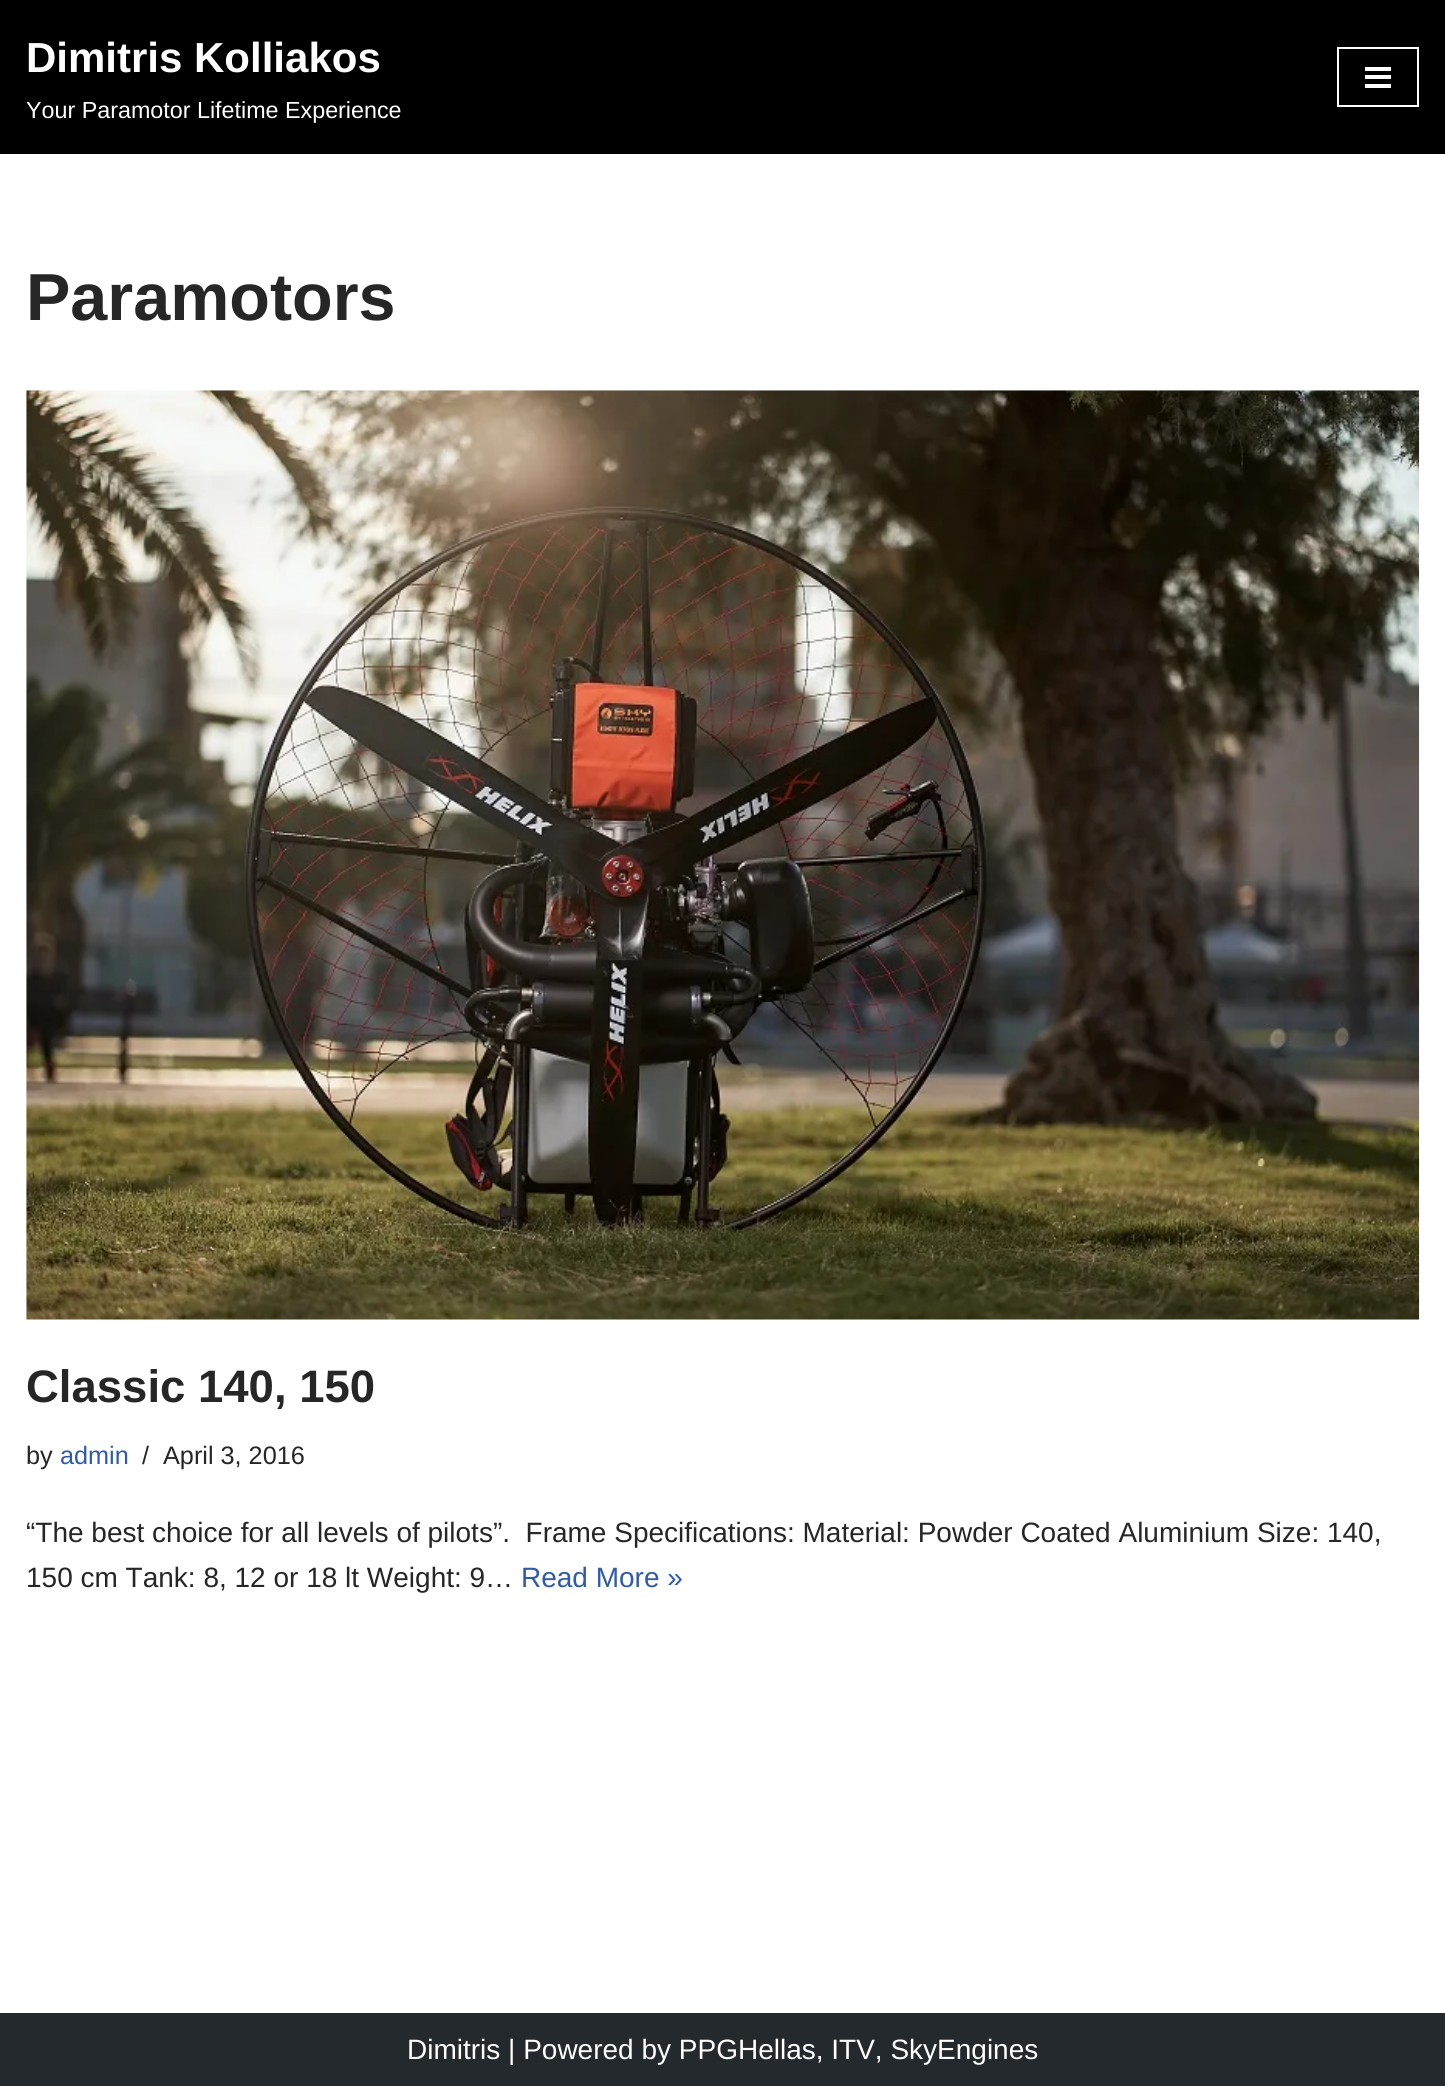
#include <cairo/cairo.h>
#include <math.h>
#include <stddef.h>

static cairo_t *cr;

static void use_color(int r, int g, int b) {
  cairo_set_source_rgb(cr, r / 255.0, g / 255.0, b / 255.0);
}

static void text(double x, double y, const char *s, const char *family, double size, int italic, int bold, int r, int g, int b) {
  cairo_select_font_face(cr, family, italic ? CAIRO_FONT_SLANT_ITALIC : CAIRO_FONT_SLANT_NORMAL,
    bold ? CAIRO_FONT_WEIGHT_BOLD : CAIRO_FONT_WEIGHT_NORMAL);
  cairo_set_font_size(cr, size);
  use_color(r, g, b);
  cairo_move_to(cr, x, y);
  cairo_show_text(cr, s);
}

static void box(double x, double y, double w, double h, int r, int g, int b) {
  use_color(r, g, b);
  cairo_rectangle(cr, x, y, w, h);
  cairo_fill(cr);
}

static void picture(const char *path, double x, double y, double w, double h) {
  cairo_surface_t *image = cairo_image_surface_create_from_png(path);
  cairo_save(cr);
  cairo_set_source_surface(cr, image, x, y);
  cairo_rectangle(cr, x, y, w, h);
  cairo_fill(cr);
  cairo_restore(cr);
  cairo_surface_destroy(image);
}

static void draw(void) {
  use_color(255, 255, 255);
  cairo_paint(cr);
  box(0, 0, 1445, 154, 0, 0, 0);
  cairo_rectangle(cr, 1338, 48, 80, 58);
  use_color(255, 255, 255);
  cairo_stroke(cr);
  box(1365, 67, 26, 4, 255, 255, 255);
  box(1365, 75, 26, 4, 255, 255, 255);
  box(1365, 84, 26, 4, 255, 255, 255);
  picture("img_01.png", 26, 390, 1394, 930);
  box(0, 2013, 1445, 73, 36, 41, 46);
  text(26, 72, "Dimitris Kolliakos", "Liberation Sans", 42, 0, 1, 255, 255, 255);
  text(26, 118, "Your Paramotor Lifetime Experience", "Liberation Sans", 23.3, 0, 0, 255, 255, 255);
  text(26, 320, "Paramotors", "Liberation Sans", 66.5, 0, 1, 39, 38, 38);
  text(26, 1402, "Classic 140, 150", "Liberation Sans", 45.5, 0, 1, 39, 38, 38);
  text(26, 1464, "by", "Liberation Sans", 25.25, 0, 0, 39, 38, 38);
  text(60, 1464, "admin", "Liberation Sans", 25.25, 0, 0, 47, 90, 174);
  text(142, 1464, "/", "Liberation Sans", 25.25, 0, 0, 39, 38, 38);
  text(163, 1464, "April 3, 2016", "Liberation Sans", 25.25, 0, 0, 39, 38, 38);
  text(26, 1542, "“The best choice for all levels of pilots”.  Frame Specifications: Material: Powder Coated Aluminium Size: 140,", "Liberation Sans", 28, 0, 0, 39, 38, 38);
  text(26, 1587, "150 cm Tank: 8, 12 or 18 lt Weight: 9…", "Liberation Sans", 28, 0, 0, 39, 38, 38);
  text(521, 1587, "Read More »", "Liberation Sans", 28, 0, 0, 47, 90, 174);
  text(407, 2059, "Dimitris | Powered by PPGHellas, ITV, SkyEngines", "Liberation Sans", 28, 0, 0, 255, 255, 255);
}

int main(void) {
  cairo_surface_t *surface = cairo_image_surface_create(CAIRO_FORMAT_RGB24, 1445, 2086);
  cr = cairo_create(surface);
  cairo_font_options_t *options = cairo_font_options_create();
  cairo_font_options_set_hint_metrics(options, CAIRO_HINT_METRICS_OFF);
  cairo_font_options_set_hint_style(options, CAIRO_HINT_STYLE_NONE);
  cairo_set_font_options(cr, options);
  cairo_set_miter_limit(cr, 4);
  draw();
  cairo_surface_write_to_png(surface, "out.png");
  cairo_font_options_destroy(options);
  cairo_destroy(cr);
  cairo_surface_destroy(surface);
  return 0;
}
